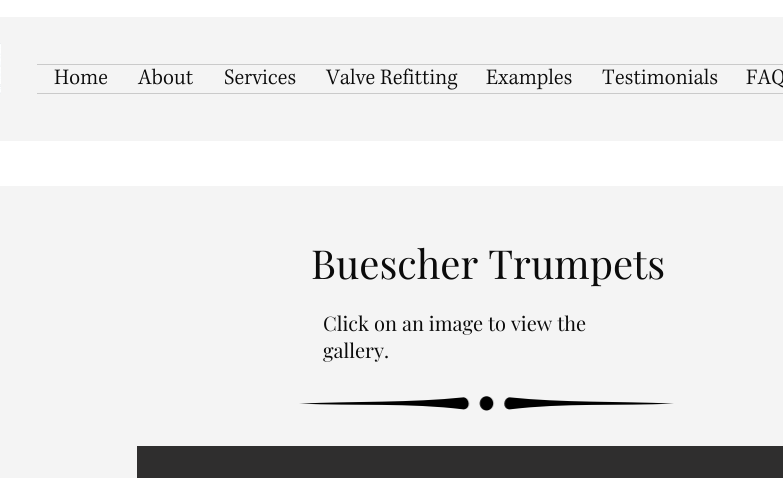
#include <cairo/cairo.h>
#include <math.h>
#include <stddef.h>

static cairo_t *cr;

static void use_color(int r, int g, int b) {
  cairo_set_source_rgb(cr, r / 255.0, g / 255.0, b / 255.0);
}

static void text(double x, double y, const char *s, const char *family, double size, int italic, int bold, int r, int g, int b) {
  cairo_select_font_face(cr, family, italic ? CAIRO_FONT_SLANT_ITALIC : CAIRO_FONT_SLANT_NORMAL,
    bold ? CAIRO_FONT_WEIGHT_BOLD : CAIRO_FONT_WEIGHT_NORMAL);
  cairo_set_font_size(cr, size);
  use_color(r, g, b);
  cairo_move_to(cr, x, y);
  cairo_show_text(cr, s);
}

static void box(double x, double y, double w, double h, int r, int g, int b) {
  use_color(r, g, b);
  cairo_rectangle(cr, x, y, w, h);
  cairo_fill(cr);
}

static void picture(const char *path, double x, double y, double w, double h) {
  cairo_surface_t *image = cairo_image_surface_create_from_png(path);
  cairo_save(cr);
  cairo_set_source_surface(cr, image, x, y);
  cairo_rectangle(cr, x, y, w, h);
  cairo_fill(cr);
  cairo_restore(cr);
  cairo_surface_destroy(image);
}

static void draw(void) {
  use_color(244, 244, 244);
  cairo_paint(cr);
  box(0, 0, 783, 186, 255, 255, 255);
  box(0, 17, 783, 124, 244, 244, 244);
  picture("img_01.png", 0, 43, 1, 51);
  box(37, 64, 746, 1, 202, 202, 202);
  box(37, 93, 746, 1, 202, 202, 202);
  picture("img_02.png", 54, 69, 54, 16);
  picture("img_03.png", 137, 68, 56, 17);
  picture("img_04.png", 225, 69, 71, 16);
  picture("img_05.png", 325, 68, 133, 22);
  picture("img_06.png", 486, 68, 86, 22);
  picture("img_07.png", 602, 68, 116, 17);
  picture("img_08.png", 746, 69, 37, 19);
  picture("img_09.png", 299, 396, 375, 15);
  box(137, 446, 646, 32, 47, 46, 46);
  text(311, 279, "Buescher Trumpets", "Playfair Display", 40, 0, 0, 11, 11, 11);
  text(323, 331, "Click on an image to view the", "Playfair Display", 20, 0, 0, 11, 11, 11);
  text(323, 358, "gallery.", "Playfair Display", 20, 0, 0, 11, 11, 11);
}

int main(void) {
  cairo_surface_t *surface = cairo_image_surface_create(CAIRO_FORMAT_RGB24, 783, 478);
  cr = cairo_create(surface);
  cairo_font_options_t *options = cairo_font_options_create();
  cairo_font_options_set_hint_metrics(options, CAIRO_HINT_METRICS_OFF);
  cairo_font_options_set_hint_style(options, CAIRO_HINT_STYLE_NONE);
  cairo_set_font_options(cr, options);
  cairo_set_miter_limit(cr, 4);
  draw();
  cairo_surface_write_to_png(surface, "out.png");
  cairo_font_options_destroy(options);
  cairo_destroy(cr);
  cairo_surface_destroy(surface);
  return 0;
}
